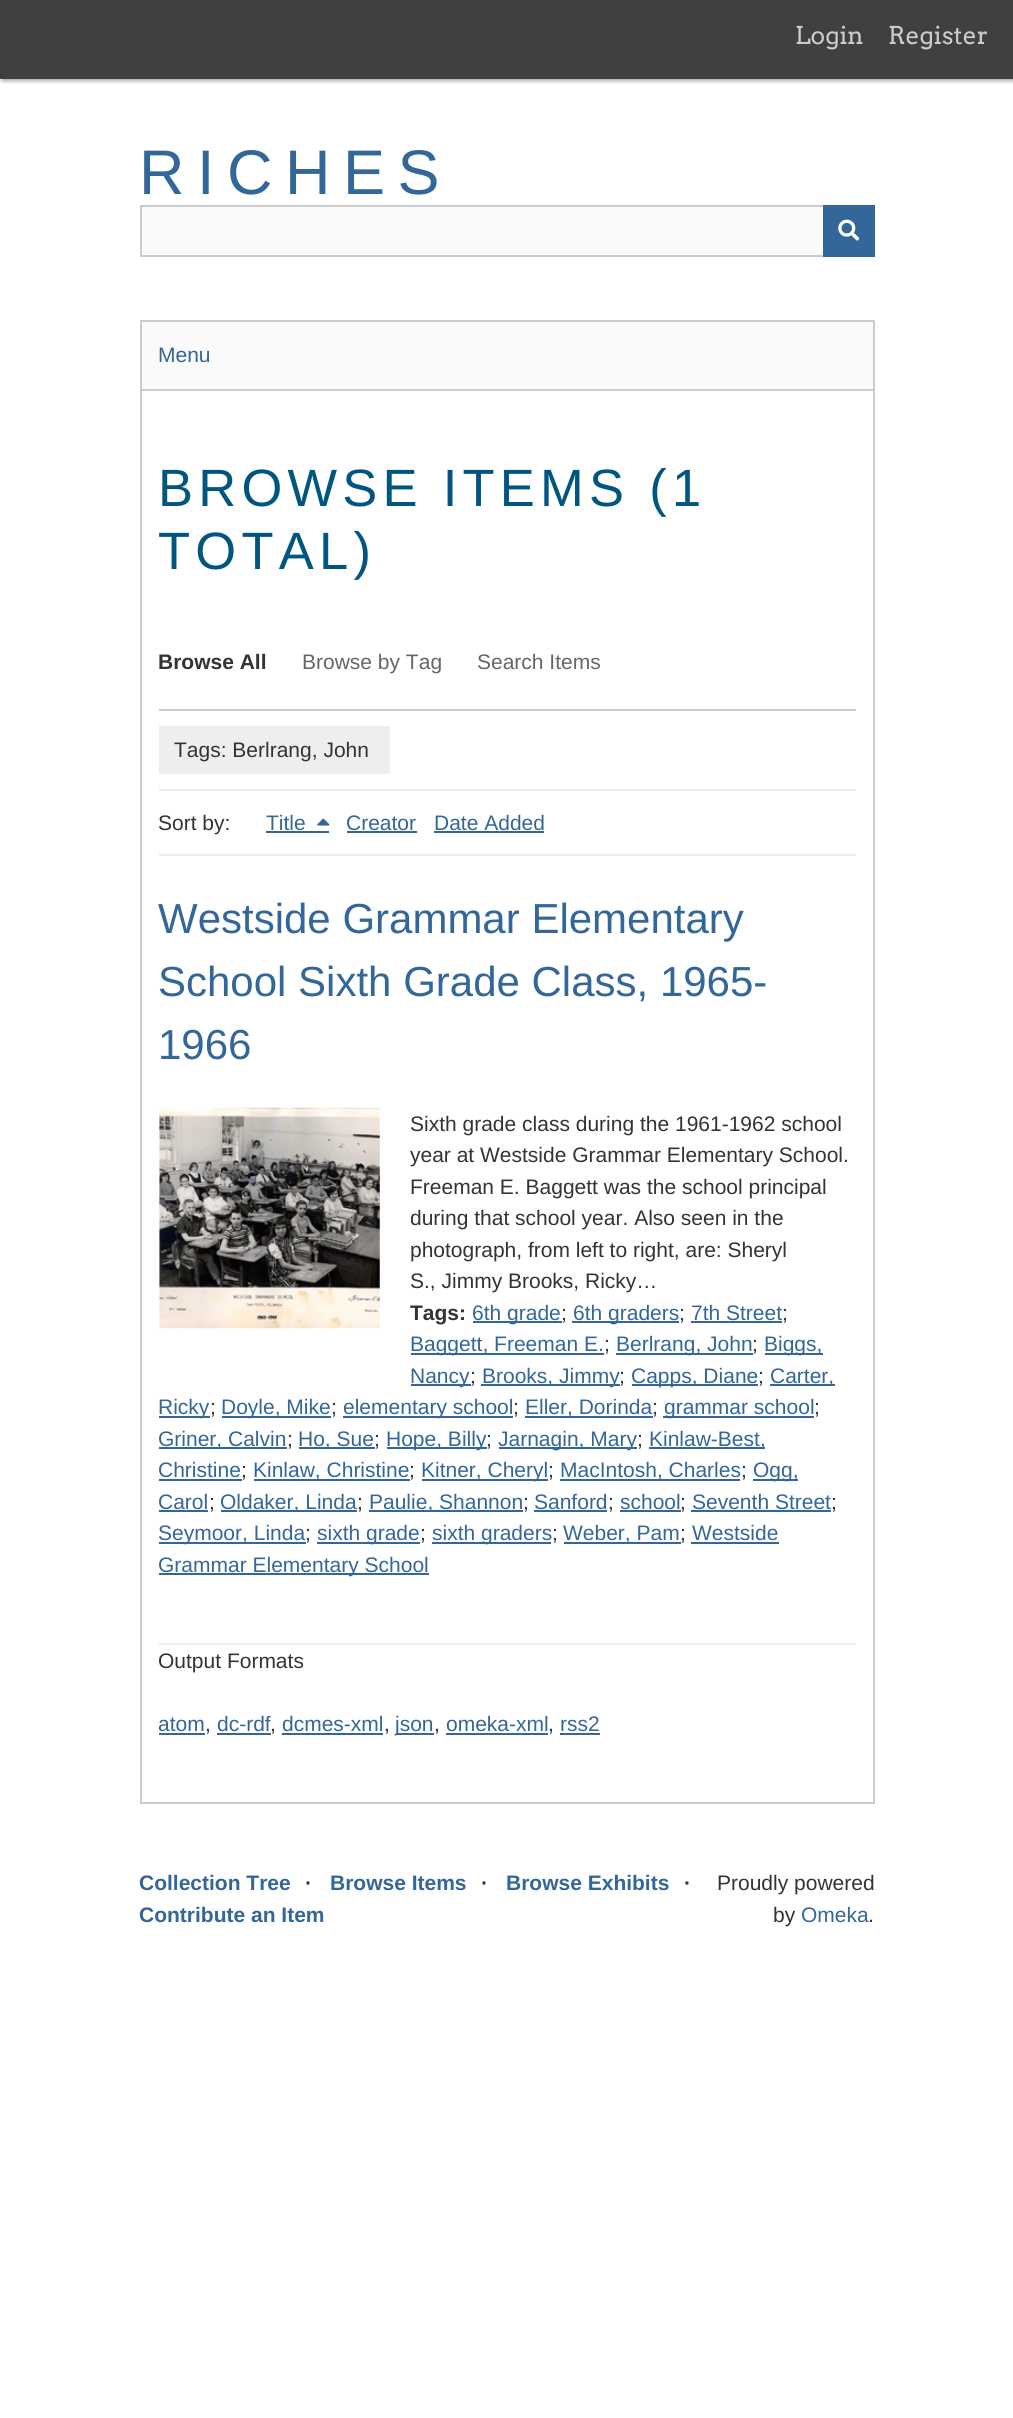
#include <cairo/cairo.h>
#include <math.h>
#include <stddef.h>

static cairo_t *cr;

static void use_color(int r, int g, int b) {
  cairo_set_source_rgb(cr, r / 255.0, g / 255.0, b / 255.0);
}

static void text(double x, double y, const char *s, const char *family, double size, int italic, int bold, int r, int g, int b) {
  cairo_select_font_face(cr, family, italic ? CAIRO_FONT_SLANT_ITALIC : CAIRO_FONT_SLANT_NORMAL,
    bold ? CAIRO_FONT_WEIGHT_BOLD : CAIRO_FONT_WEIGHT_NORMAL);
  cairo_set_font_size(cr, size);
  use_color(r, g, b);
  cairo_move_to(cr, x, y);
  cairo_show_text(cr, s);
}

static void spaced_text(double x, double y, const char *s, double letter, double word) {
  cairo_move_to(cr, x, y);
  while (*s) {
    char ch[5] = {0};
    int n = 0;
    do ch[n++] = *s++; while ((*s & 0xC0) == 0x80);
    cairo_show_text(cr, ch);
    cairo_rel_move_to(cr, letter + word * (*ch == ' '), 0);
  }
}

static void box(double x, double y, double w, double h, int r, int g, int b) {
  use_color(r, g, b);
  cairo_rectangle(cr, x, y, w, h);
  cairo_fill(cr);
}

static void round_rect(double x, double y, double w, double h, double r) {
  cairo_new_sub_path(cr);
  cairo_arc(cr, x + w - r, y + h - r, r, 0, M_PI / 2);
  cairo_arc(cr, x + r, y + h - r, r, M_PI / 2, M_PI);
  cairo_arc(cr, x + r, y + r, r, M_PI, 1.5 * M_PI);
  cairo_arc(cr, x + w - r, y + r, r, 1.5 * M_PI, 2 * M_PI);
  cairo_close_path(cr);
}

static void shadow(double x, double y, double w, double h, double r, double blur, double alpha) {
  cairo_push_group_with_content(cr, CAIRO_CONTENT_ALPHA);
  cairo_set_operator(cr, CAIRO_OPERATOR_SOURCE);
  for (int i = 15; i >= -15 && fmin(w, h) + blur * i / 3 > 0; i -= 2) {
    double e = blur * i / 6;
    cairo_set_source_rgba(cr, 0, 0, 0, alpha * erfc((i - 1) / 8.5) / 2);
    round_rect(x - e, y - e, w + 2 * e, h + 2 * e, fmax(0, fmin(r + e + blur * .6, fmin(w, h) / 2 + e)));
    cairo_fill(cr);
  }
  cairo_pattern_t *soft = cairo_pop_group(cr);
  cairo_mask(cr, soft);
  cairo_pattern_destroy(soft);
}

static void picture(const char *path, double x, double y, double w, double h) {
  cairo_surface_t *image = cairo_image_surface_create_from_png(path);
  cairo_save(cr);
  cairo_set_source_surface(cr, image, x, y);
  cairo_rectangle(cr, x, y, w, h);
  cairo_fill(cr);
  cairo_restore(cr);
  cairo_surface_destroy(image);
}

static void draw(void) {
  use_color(255, 255, 255);
  cairo_paint(cr);
  use_color(0, 0, 0);
  shadow(2, 2, 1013, 79, 0, 2, 0.35);
  box(0, 0, 1013, 79, 64, 64, 64);
  box(142, 207, 681, 48, 250, 250, 250);
  cairo_rectangle(cr, 141, 206, 733, 50);
  use_color(204, 204, 204);
  cairo_stroke(cr);
  box(823, 205, 52, 52, 51, 102, 153);
  picture("img_01.png", 838, 219, 22, 22);
  box(142, 322, 731, 67, 250, 250, 250);
  box(140, 320, 735, 2, 204, 204, 204);
  box(873, 320, 2, 69, 204, 204, 204);
  box(140, 320, 2, 69, 204, 204, 204);
  cairo_rectangle(cr, 141, 390, 733, 1413);
  cairo_stroke(cr);
  box(159, 709, 697, 2, 204, 204, 204);
  box(159, 789, 697, 2, 238, 238, 238);
  box(159, 726, 231, 48, 238, 238, 238);
  box(266, 831, 63, 2, 51, 102, 153);
  picture("img_02.png", 317, 818, 13, 8);
  box(347, 831, 70, 2, 51, 102, 153);
  box(434, 831, 110, 2, 51, 102, 153);
  box(159, 854, 697, 2, 238, 238, 238);
  box(159, 1643, 697, 2, 238, 238, 238);
  picture("img_03.png", 159, 1107, 221, 222);
  box(473, 1321, 89, 2, 51, 102, 153);
  box(572, 1321, 107, 2, 51, 102, 153);
  box(691, 1321, 91, 2, 51, 102, 153);
  box(411, 1353, 193, 2, 51, 102, 153);
  box(616, 1353, 137, 2, 51, 102, 153);
  box(765, 1353, 58, 2, 51, 102, 153);
  box(411, 1384, 60, 2, 51, 102, 153);
  box(481, 1384, 139, 2, 51, 102, 153);
  box(632, 1384, 126, 2, 51, 102, 153);
  box(770, 1384, 65, 2, 51, 102, 153);
  box(159, 1416, 51, 2, 51, 102, 153);
  box(222, 1416, 109, 2, 51, 102, 153);
  box(343, 1416, 170, 2, 51, 102, 153);
  box(525, 1416, 128, 2, 51, 102, 153);
  box(663, 1416, 151, 2, 51, 102, 153);
  box(159, 1447, 128, 2, 51, 102, 153);
  box(299, 1447, 76, 2, 51, 102, 153);
  box(387, 1447, 100, 2, 51, 102, 153);
  box(499, 1447, 138, 2, 51, 102, 153);
  box(649, 1447, 116, 2, 51, 102, 153);
  box(159, 1479, 83, 2, 51, 102, 153);
  box(254, 1479, 156, 2, 51, 102, 153);
  box(422, 1479, 126, 2, 51, 102, 153);
  box(560, 1479, 180, 2, 51, 102, 153);
  box(753, 1479, 45, 2, 51, 102, 153);
  box(159, 1510, 49, 2, 51, 102, 153);
  box(221, 1510, 136, 2, 51, 102, 153);
  box(369, 1510, 154, 2, 51, 102, 153);
  box(534, 1510, 73, 2, 51, 102, 153);
  box(620, 1510, 61, 2, 51, 102, 153);
  box(691, 1510, 140, 2, 51, 102, 153);
  box(159, 1542, 147, 2, 51, 102, 153);
  box(317, 1542, 103, 2, 51, 102, 153);
  box(432, 1542, 119, 2, 51, 102, 153);
  box(564, 1542, 117, 2, 51, 102, 153);
  box(691, 1542, 88, 2, 51, 102, 153);
  box(159, 1573, 270, 2, 51, 102, 153);
  box(159, 1733, 46, 2, 51, 102, 153);
  box(217, 1733, 54, 2, 51, 102, 153);
  box(282, 1733, 101, 2, 51, 102, 153);
  box(396, 1733, 38, 2, 51, 102, 153);
  box(446, 1733, 102, 2, 51, 102, 153);
  box(560, 1733, 40, 2, 51, 102, 153);
  text(795, 44, "Login", "Arvo", 24.5, 0, 0, 204, 204, 204);
  text(888, 44, "Register", "Arvo", 24.5, 0, 0, 204, 204, 204);
  cairo_select_font_face(cr, "Liberation Sans", CAIRO_FONT_SLANT_NORMAL, CAIRO_FONT_WEIGHT_NORMAL);
  cairo_set_font_size(cr, 63);
  use_color(51, 102, 153);
  spaced_text(139, 194, "RICHES", 12.5, 0);
  text(158, 362, "Menu", "Liberation Sans", 21, 0, 0, 51, 102, 153);
  cairo_set_font_size(cr, 52.5);
  use_color(1, 85, 129);
  spaced_text(158, 506, "BROWSE ITEMS (1", 5.25, 0);
  spaced_text(158, 569, "TOTAL)", 5.25, 0);
  text(158, 669, "Browse All", "Liberation Sans", 21, 0, 1, 51, 51, 51);
  text(302, 669, "Browse by Tag", "Liberation Sans", 21, 0, 0, 102, 102, 102);
  text(477, 669, "Search Items", "Liberation Sans", 21, 0, 0, 102, 102, 102);
  text(174, 757, "Tags: Berlrang, John", "Liberation Sans", 21, 0, 0, 51, 51, 51);
  text(158, 830, "Sort by:", "Liberation Sans", 21, 0, 0, 51, 51, 51);
  text(266, 830, "Title", "Liberation Sans", 21, 0, 0, 51, 102, 153);
  text(346, 830, "Creator", "Liberation Sans", 21, 0, 0, 51, 102, 153);
  text(434, 830, "Date Added", "Liberation Sans", 21, 0, 0, 51, 102, 153);
  text(158, 933, "Westside Grammar Elementary", "Liberation Sans", 42, 0, 0, 51, 102, 153);
  text(158, 996, "School Sixth Grade Class, 1965-", "Liberation Sans", 42, 0, 0, 51, 102, 153);
  text(158, 1059, "1966", "Liberation Sans", 42, 0, 0, 51, 102, 153);
  text(410, 1131, "Sixth grade class during the 1961-1962 school", "Liberation Sans", 21, 0, 0, 51, 51, 51);
  text(410, 1162, "year at Westside Grammar Elementary School.", "Liberation Sans", 21, 0, 0, 51, 51, 51);
  text(410, 1194, "Freeman E. Baggett was the school principal", "Liberation Sans", 21, 0, 0, 51, 51, 51);
  text(410, 1225, "during that school year. Also seen in the", "Liberation Sans", 21, 0, 0, 51, 51, 51);
  text(410, 1257, "photograph, from left to right, are: Sheryl", "Liberation Sans", 21, 0, 0, 51, 51, 51);
  text(410, 1288, "S., Jimmy Brooks, Ricky…", "Liberation Sans", 21, 0, 0, 51, 51, 51);
  text(410, 1320, "Tags:", "Liberation Sans", 21, 0, 1, 51, 51, 51);
  text(472, 1320, "6th grade", "Liberation Sans", 21, 0, 0, 51, 102, 153);
  text(561, 1320, ";", "Liberation Sans", 21, 0, 0, 51, 51, 51);
  text(573, 1320, "6th graders", "Liberation Sans", 21, 0, 0, 51, 102, 153);
  text(679, 1320, ";", "Liberation Sans", 21, 0, 0, 51, 51, 51);
  text(691, 1320, "7th Street", "Liberation Sans", 21, 0, 0, 51, 102, 153);
  text(782, 1320, ";", "Liberation Sans", 21, 0, 0, 51, 51, 51);
  text(410, 1351, "Baggett, Freeman E.", "Liberation Sans", 21, 0, 0, 51, 102, 153);
  text(604, 1351, ";", "Liberation Sans", 21, 0, 0, 51, 51, 51);
  text(616, 1351, "Berlrang, John", "Liberation Sans", 21, 0, 0, 51, 102, 153);
  text(752, 1351, ";", "Liberation Sans", 21, 0, 0, 51, 51, 51);
  text(764, 1351, "Biggs,", "Liberation Sans", 21, 0, 0, 51, 102, 153);
  text(410, 1383, "Nancy", "Liberation Sans", 21, 0, 0, 51, 102, 153);
  text(470, 1383, ";", "Liberation Sans", 21, 0, 0, 51, 51, 51);
  text(482, 1383, "Brooks, Jimmy", "Liberation Sans", 21, 0, 0, 51, 102, 153);
  text(619, 1383, ";", "Liberation Sans", 21, 0, 0, 51, 51, 51);
  text(631, 1383, "Capps, Diane", "Liberation Sans", 21, 0, 0, 51, 102, 153);
  text(758, 1383, ";", "Liberation Sans", 21, 0, 0, 51, 51, 51);
  text(770, 1383, "Carter,", "Liberation Sans", 21, 0, 0, 51, 102, 153);
  text(158, 1414, "Ricky", "Liberation Sans", 21, 0, 0, 51, 102, 153);
  text(210, 1414, ";", "Liberation Sans", 21, 0, 0, 51, 51, 51);
  text(221, 1414, "Doyle, Mike", "Liberation Sans", 21, 0, 0, 51, 102, 153);
  text(331, 1414, ";", "Liberation Sans", 21, 0, 0, 51, 51, 51);
  text(343, 1414, "elementary school", "Liberation Sans", 21, 0, 0, 51, 102, 153);
  text(513, 1414, ";", "Liberation Sans", 21, 0, 0, 51, 51, 51);
  text(525, 1414, "Eller, Dorinda", "Liberation Sans", 21, 0, 0, 51, 102, 153);
  text(652, 1414, ";", "Liberation Sans", 21, 0, 0, 51, 51, 51);
  text(664, 1414, "grammar school", "Liberation Sans", 21, 0, 0, 51, 102, 153);
  text(814, 1414, ";", "Liberation Sans", 21, 0, 0, 51, 51, 51);
  text(158, 1446, "Griner, Calvin", "Liberation Sans", 21, 0, 0, 51, 102, 153);
  text(287, 1446, ";", "Liberation Sans", 21, 0, 0, 51, 51, 51);
  text(298, 1446, "Ho, Sue", "Liberation Sans", 21, 0, 0, 51, 102, 153);
  text(374, 1446, ";", "Liberation Sans", 21, 0, 0, 51, 51, 51);
  text(386, 1446, "Hope, Billy", "Liberation Sans", 21, 0, 0, 51, 102, 153);
  text(486, 1446, ";", "Liberation Sans", 21, 0, 0, 51, 51, 51);
  text(498, 1446, "Jarnagin, Mary", "Liberation Sans", 21, 0, 0, 51, 102, 153);
  text(637, 1446, ";", "Liberation Sans", 21, 0, 0, 51, 51, 51);
  text(649, 1446, "Kinlaw-Best,", "Liberation Sans", 21, 0, 0, 51, 102, 153);
  text(158, 1477, "Christine", "Liberation Sans", 21, 0, 0, 51, 102, 153);
  text(241, 1477, ";", "Liberation Sans", 21, 0, 0, 51, 51, 51);
  text(253, 1477, "Kinlaw, Christine", "Liberation Sans", 21, 0, 0, 51, 102, 153);
  text(409, 1477, ";", "Liberation Sans", 21, 0, 0, 51, 51, 51);
  text(421, 1477, "Kitner, Cheryl", "Liberation Sans", 21, 0, 0, 51, 102, 153);
  text(548, 1477, ";", "Liberation Sans", 21, 0, 0, 51, 51, 51);
  text(560, 1477, "MacIntosh, Charles", "Liberation Sans", 21, 0, 0, 51, 102, 153);
  text(741, 1477, ";", "Liberation Sans", 21, 0, 0, 51, 51, 51);
  text(753, 1477, "Ogg,", "Liberation Sans", 21, 0, 0, 51, 102, 153);
  text(158, 1509, "Carol", "Liberation Sans", 21, 0, 0, 51, 102, 153);
  text(209, 1509, ";", "Liberation Sans", 21, 0, 0, 51, 51, 51);
  text(220, 1509, "Oldaker, Linda", "Liberation Sans", 21, 0, 0, 51, 102, 153);
  text(357, 1509, ";", "Liberation Sans", 21, 0, 0, 51, 51, 51);
  text(369, 1509, "Paulie, Shannon", "Liberation Sans", 21, 0, 0, 51, 102, 153);
  text(523, 1509, ";", "Liberation Sans", 21, 0, 0, 51, 51, 51);
  text(534, 1509, "Sanford", "Liberation Sans", 21, 0, 0, 51, 102, 153);
  text(608, 1509, ";", "Liberation Sans", 21, 0, 0, 51, 51, 51);
  text(620, 1509, "school", "Liberation Sans", 21, 0, 0, 51, 102, 153);
  text(680, 1509, ";", "Liberation Sans", 21, 0, 0, 51, 51, 51);
  text(692, 1509, "Seventh Street", "Liberation Sans", 21, 0, 0, 51, 102, 153);
  text(831, 1509, ";", "Liberation Sans", 21, 0, 0, 51, 51, 51);
  text(158, 1540, "Seymoor, Linda", "Liberation Sans", 21, 0, 0, 51, 102, 153);
  text(305, 1540, ";", "Liberation Sans", 21, 0, 0, 51, 51, 51);
  text(317, 1540, "sixth grade", "Liberation Sans", 21, 0, 0, 51, 102, 153);
  text(420, 1540, ";", "Liberation Sans", 21, 0, 0, 51, 51, 51);
  text(432, 1540, "sixth graders", "Liberation Sans", 21, 0, 0, 51, 102, 153);
  text(552, 1540, ";", "Liberation Sans", 21, 0, 0, 51, 51, 51);
  text(563, 1540, "Weber, Pam", "Liberation Sans", 21, 0, 0, 51, 102, 153);
  text(680, 1540, ";", "Liberation Sans", 21, 0, 0, 51, 51, 51);
  text(692, 1540, "Westside", "Liberation Sans", 21, 0, 0, 51, 102, 153);
  text(158, 1572, "Grammar Elementary School", "Liberation Sans", 21, 0, 0, 51, 102, 153);
  text(158, 1668, "Output Formats", "Liberation Sans", 21, 0, 0, 51, 51, 51);
  text(158, 1731, "atom", "Liberation Sans", 21, 0, 0, 51, 102, 153);
  text(205, 1731, ",", "Liberation Sans", 21, 0, 0, 51, 51, 51);
  text(217, 1731, "dc-rdf", "Liberation Sans", 21, 0, 0, 51, 102, 153);
  text(270, 1731, ",", "Liberation Sans", 21, 0, 0, 51, 51, 51);
  text(282, 1731, "dcmes-xml", "Liberation Sans", 21, 0, 0, 51, 102, 153);
  text(384, 1731, ",", "Liberation Sans", 21, 0, 0, 51, 51, 51);
  text(395, 1731, "json", "Liberation Sans", 21, 0, 0, 51, 102, 153);
  text(434, 1731, ",", "Liberation Sans", 21, 0, 0, 51, 51, 51);
  text(446, 1731, "omeka-xml", "Liberation Sans", 21, 0, 0, 51, 102, 153);
  text(548, 1731, ",", "Liberation Sans", 21, 0, 0, 51, 51, 51);
  text(560, 1731, "rss2", "Liberation Sans", 21, 0, 0, 51, 102, 153);
  text(139, 1890, "Collection Tree", "Liberation Sans", 21, 0, 1, 51, 102, 153);
  text(305, 1890, "·", "Liberation Sans", 21, 0, 1, 51, 51, 51);
  text(330, 1890, "Browse Items", "Liberation Sans", 21, 0, 1, 51, 102, 153);
  text(481, 1890, "·", "Liberation Sans", 21, 0, 1, 51, 51, 51);
  text(506, 1890, "Browse Exhibits", "Liberation Sans", 21, 0, 1, 51, 102, 153);
  text(684, 1890, "·", "Liberation Sans", 21, 0, 1, 51, 51, 51);
  text(139, 1922, "Contribute an Item", "Liberation Sans", 21, 0, 1, 51, 102, 153);
  text(717, 1890, "Proudly powered", "Liberation Sans", 21, 0, 0, 51, 51, 51);
  text(773, 1922, "by", "Liberation Sans", 21, 0, 0, 51, 51, 51);
  text(801, 1922, "Omeka", "Liberation Sans", 21, 0, 0, 51, 102, 153);
  text(868, 1922, ".", "Liberation Sans", 21, 0, 0, 51, 51, 51);
}

int main(void) {
  cairo_surface_t *surface = cairo_image_surface_create(CAIRO_FORMAT_RGB24, 1013, 2418);
  cr = cairo_create(surface);
  cairo_font_options_t *options = cairo_font_options_create();
  cairo_font_options_set_hint_metrics(options, CAIRO_HINT_METRICS_OFF);
  cairo_font_options_set_hint_style(options, CAIRO_HINT_STYLE_NONE);
  cairo_set_font_options(cr, options);
  cairo_set_miter_limit(cr, 4);
  draw();
  cairo_surface_write_to_png(surface, "out.png");
  cairo_font_options_destroy(options);
  cairo_destroy(cr);
  cairo_surface_destroy(surface);
  return 0;
}
